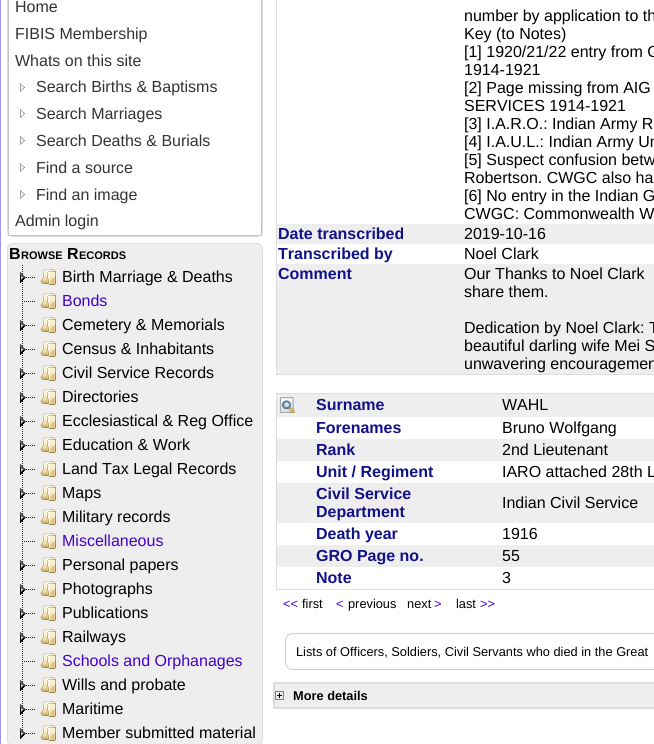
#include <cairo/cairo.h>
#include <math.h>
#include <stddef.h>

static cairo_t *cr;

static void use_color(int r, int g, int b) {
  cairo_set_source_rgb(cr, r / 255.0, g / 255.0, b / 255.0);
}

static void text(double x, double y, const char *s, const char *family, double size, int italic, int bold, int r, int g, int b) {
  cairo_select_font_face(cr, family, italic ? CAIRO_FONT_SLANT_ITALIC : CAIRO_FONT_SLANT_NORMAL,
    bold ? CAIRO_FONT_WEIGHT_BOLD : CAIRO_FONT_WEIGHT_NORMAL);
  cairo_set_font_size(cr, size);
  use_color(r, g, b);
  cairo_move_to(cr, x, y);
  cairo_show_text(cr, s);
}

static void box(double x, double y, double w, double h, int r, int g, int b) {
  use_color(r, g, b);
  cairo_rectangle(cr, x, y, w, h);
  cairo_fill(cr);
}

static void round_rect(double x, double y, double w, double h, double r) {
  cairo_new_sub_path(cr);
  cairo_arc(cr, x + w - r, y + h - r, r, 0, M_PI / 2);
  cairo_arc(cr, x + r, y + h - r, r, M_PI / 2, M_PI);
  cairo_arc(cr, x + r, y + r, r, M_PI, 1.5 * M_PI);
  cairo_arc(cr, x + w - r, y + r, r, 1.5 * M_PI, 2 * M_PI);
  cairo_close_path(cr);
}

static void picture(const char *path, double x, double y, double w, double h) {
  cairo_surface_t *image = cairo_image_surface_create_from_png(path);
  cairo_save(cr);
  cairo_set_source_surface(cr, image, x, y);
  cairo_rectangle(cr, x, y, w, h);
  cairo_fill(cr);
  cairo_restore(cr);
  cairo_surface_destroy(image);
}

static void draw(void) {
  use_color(255, 255, 255);
  cairo_paint(cr);
  cairo_rectangle(cr, 0.5, -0.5, 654, 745);
  use_color(153, 153, 255);
  cairo_set_line_width(cr, 1);
  cairo_stroke(cr);
  round_rect(7.5, -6.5, 255, 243, 5.5);
  use_color(221, 221, 221);
  cairo_stroke(cr);
  box(9, 234, 252, 1, 255, 255, 255);
  cairo_rectangle(cr, 8.5, -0.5, 253, 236);
  use_color(197, 197, 197);
  cairo_stroke(cr);
  picture("img_01.png", 20, 83, 5, 9);
  picture("img_01.png", 20, 109, 5, 9);
  picture("img_01.png", 20, 136, 5, 9);
  picture("img_01.png", 20, 163, 5, 9);
  picture("img_01.png", 20, 190, 5, 9);
  use_color(238, 238, 238);
  round_rect(7.5, 243.5, 255, 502, 5.5);
  cairo_fill_preserve(cr);
  use_color(221, 221, 221);
  cairo_stroke(cr);
  picture("img_02.png", 22, 265, 1, 23);
  picture("img_03.png", 20, 272, 15, 11);
  picture("img_04.png", 40, 269, 16, 16);
  picture("img_02.png", 22, 289, 1, 23);
  picture("img_05.png", 24, 301, 11, 1);
  picture("img_04.png", 40, 293, 16, 16);
  picture("img_02.png", 22, 313, 1, 23);
  picture("img_03.png", 20, 320, 15, 11);
  picture("img_04.png", 40, 317, 16, 16);
  picture("img_02.png", 22, 337, 1, 23);
  picture("img_03.png", 20, 344, 15, 11);
  picture("img_04.png", 40, 341, 16, 16);
  picture("img_02.png", 22, 361, 1, 23);
  picture("img_03.png", 20, 368, 15, 11);
  picture("img_04.png", 40, 365, 16, 16);
  picture("img_02.png", 22, 385, 1, 23);
  picture("img_03.png", 20, 392, 15, 11);
  picture("img_04.png", 40, 389, 16, 16);
  picture("img_02.png", 22, 409, 1, 23);
  picture("img_03.png", 20, 416, 15, 11);
  picture("img_04.png", 40, 413, 16, 16);
  picture("img_02.png", 22, 433, 1, 23);
  picture("img_03.png", 20, 440, 15, 11);
  picture("img_04.png", 40, 437, 16, 16);
  picture("img_02.png", 22, 457, 1, 23);
  picture("img_03.png", 20, 464, 15, 11);
  picture("img_04.png", 40, 461, 16, 16);
  picture("img_02.png", 22, 481, 1, 23);
  picture("img_03.png", 20, 488, 15, 11);
  picture("img_04.png", 40, 485, 16, 16);
  picture("img_02.png", 22, 505, 1, 23);
  picture("img_03.png", 20, 512, 15, 11);
  picture("img_04.png", 40, 509, 16, 16);
  picture("img_02.png", 22, 529, 1, 23);
  picture("img_05.png", 24, 541, 11, 1);
  picture("img_04.png", 40, 533, 16, 16);
  picture("img_02.png", 22, 553, 1, 23);
  picture("img_03.png", 20, 560, 15, 11);
  picture("img_04.png", 40, 557, 16, 16);
  picture("img_02.png", 22, 577, 1, 23);
  picture("img_03.png", 20, 584, 15, 11);
  picture("img_04.png", 40, 581, 16, 16);
  picture("img_02.png", 22, 601, 1, 23);
  picture("img_03.png", 20, 608, 15, 11);
  picture("img_04.png", 40, 605, 16, 16);
  picture("img_02.png", 22, 625, 1, 23);
  picture("img_03.png", 20, 632, 15, 11);
  picture("img_04.png", 40, 629, 16, 16);
  picture("img_02.png", 22, 649, 1, 23);
  picture("img_05.png", 24, 661, 11, 1);
  picture("img_04.png", 40, 653, 16, 16);
  picture("img_02.png", 22, 673, 1, 23);
  picture("img_03.png", 20, 680, 15, 11);
  picture("img_04.png", 40, 677, 16, 16);
  picture("img_02.png", 22, 697, 1, 23);
  picture("img_03.png", 20, 704, 15, 11);
  picture("img_04.png", 40, 701, 16, 16);
  picture("img_06.png", 20, 721, 15, 18);
  picture("img_04.png", 40, 725, 16, 16);
  cairo_rectangle(cr, 276.5, -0.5, 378, 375);
  cairo_stroke(cr);
  box(277, 224, 377, 20, 238, 238, 238);
  box(277, 264, 377, 110, 238, 238, 238);
  cairo_rectangle(cr, 276.5, 393.5, 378, 196);
  use_color(221, 221, 221);
  cairo_stroke(cr);
  box(277, 394, 377, 23, 238, 238, 238);
  picture("img_07.png", 280, 397, 15, 16);
  box(277, 439, 377, 22, 238, 238, 238);
  box(277, 483, 377, 40, 238, 238, 238);
  box(277, 545, 377, 22, 238, 238, 238);
  round_rect(285.5, 633.5, 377, 36, 7.5);
  use_color(204, 204, 204);
  cairo_stroke(cr);
  cairo_rectangle(cr, 273.5, 682.5, 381, 26);
  use_color(221, 221, 221);
  cairo_stroke(cr);
  use_color(238, 238, 238);
  cairo_rectangle(cr, 274.5, 683.5, 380, 24);
  cairo_fill_preserve(cr);
  use_color(221, 221, 221);
  cairo_stroke(cr);
  picture("img_08.png", 275, 691, 9, 9);
  text(15, 12, "Home", "Liberation Sans", 16, 0, 0, 51, 51, 51);
  text(15, 39, "FIBIS Membership", "Liberation Sans", 16, 0, 0, 51, 51, 51);
  text(15, 66, "Whats on this site", "Liberation Sans", 16, 0, 0, 51, 51, 51);
  text(36, 92, "Search Births & Baptisms", "Liberation Sans", 16, 0, 0, 51, 51, 51);
  text(36, 119, "Search Marriages", "Liberation Sans", 16, 0, 0, 51, 51, 51);
  text(36, 146, "Search Deaths & Burials", "Liberation Sans", 16, 0, 0, 51, 51, 51);
  text(36, 173, "Find a source", "Liberation Sans", 16, 0, 0, 51, 51, 51);
  text(36, 200, "Find an image", "Liberation Sans", 16, 0, 0, 51, 51, 51);
  text(15, 226, "Admin login", "Liberation Sans", 16, 0, 0, 51, 51, 51);
  text(9, 259, "B", "Liberation Sans", 16, 0, 1, 0, 0, 0);
  text(21, 259, "ROWSE", "Liberation Sans", 11, 0, 1, 0, 0, 0);
  text(67, 259, "R", "Liberation Sans", 16, 0, 1, 0, 0, 0);
  text(79, 259, "ECORDS", "Liberation Sans", 11, 0, 1, 0, 0, 0);
  text(62, 282, "Birth Marriage & Deaths", "Liberation Sans", 16, 0, 0, 0, 0, 0);
  text(62, 306, "Bonds", "Liberation Sans", 16, 0, 0, 68, 0, 200);
  text(62, 330, "Cemetery & Memorials", "Liberation Sans", 16, 0, 0, 0, 0, 0);
  text(62, 354, "Census & Inhabitants", "Liberation Sans", 16, 0, 0, 0, 0, 0);
  text(62, 378, "Civil Service Records", "Liberation Sans", 16, 0, 0, 0, 0, 0);
  text(62, 402, "Directories", "Liberation Sans", 16, 0, 0, 0, 0, 0);
  text(62, 426, "Ecclesiastical & Reg Office", "Liberation Sans", 16, 0, 0, 0, 0, 0);
  text(62, 450, "Education & Work", "Liberation Sans", 16, 0, 0, 0, 0, 0);
  text(62, 474, "Land Tax Legal Records", "Liberation Sans", 16, 0, 0, 0, 0, 0);
  text(62, 498, "Maps", "Liberation Sans", 16, 0, 0, 0, 0, 0);
  text(62, 522, "Military records", "Liberation Sans", 16, 0, 0, 0, 0, 0);
  text(62, 546, "Miscellaneous", "Liberation Sans", 16, 0, 0, 68, 0, 200);
  text(62, 570, "Personal papers", "Liberation Sans", 16, 0, 0, 0, 0, 0);
  text(62, 594, "Photographs", "Liberation Sans", 16, 0, 0, 0, 0, 0);
  text(62, 618, "Publications", "Liberation Sans", 16, 0, 0, 0, 0, 0);
  text(62, 642, "Railways", "Liberation Sans", 16, 0, 0, 0, 0, 0);
  text(62, 666, "Schools and Orphanages", "Liberation Sans", 16, 0, 0, 68, 0, 200);
  text(62, 690, "Wills and probate", "Liberation Sans", 16, 0, 0, 0, 0, 0);
  text(62, 714, "Maritime", "Liberation Sans", 16, 0, 0, 0, 0, 0);
  text(62, 738, "Member submitted material", "Liberation Sans", 16, 0, 0, 0, 0, 0);
  text(464, 21, "number by application to th", "Liberation Sans", 16, 0, 0, 0, 0, 0);
  text(464, 39, "Key (to Notes)", "Liberation Sans", 16, 0, 0, 0, 0, 0);
  text(464, 57, "[1] 1920/21/22 entry from G", "Liberation Sans", 16, 0, 0, 0, 0, 0);
  text(464, 75, "1914-1921", "Liberation Sans", 16, 0, 0, 0, 0, 0);
  text(464, 93, "[2] Page missing from AIG", "Liberation Sans", 16, 0, 0, 0, 0, 0);
  text(464, 111, "SERVICES 1914-1921", "Liberation Sans", 16, 0, 0, 0, 0, 0);
  text(464, 129, "[3] I.A.R.O.: Indian Army R", "Liberation Sans", 16, 0, 0, 0, 0, 0);
  text(464, 147, "[4] I.A.U.L.: Indian Army Un", "Liberation Sans", 16, 0, 0, 0, 0, 0);
  text(464, 165, "[5] Suspect confusion betw", "Liberation Sans", 16, 0, 0, 0, 0, 0);
  text(464, 183, "Robertson. CWGC also ha", "Liberation Sans", 16, 0, 0, 0, 0, 0);
  text(464, 201, "[6] No entry in the Indian G", "Liberation Sans", 16, 0, 0, 0, 0, 0);
  text(464, 219, "CWGC: Commonwealth W", "Liberation Sans", 16, 0, 0, 0, 0, 0);
  text(278, 239, "Date transcribed", "Liberation Sans", 16, 0, 1, 17, 17, 136);
  text(464, 239, "2019-10-16", "Liberation Sans", 16, 0, 0, 0, 0, 0);
  text(278, 259, "Transcribed by", "Liberation Sans", 16, 0, 1, 17, 17, 136);
  text(464, 259, "Noel Clark", "Liberation Sans", 16, 0, 0, 0, 0, 0);
  text(278, 279, "Comment", "Liberation Sans", 16, 0, 1, 17, 17, 136);
  text(464, 279, "Our Thanks to Noel Clark", "Liberation Sans", 16, 0, 0, 0, 0, 0);
  text(464, 297, "share them.", "Liberation Sans", 16, 0, 0, 0, 0, 0);
  text(464, 333, "Dedication by Noel Clark: T", "Liberation Sans", 16, 0, 0, 0, 0, 0);
  text(464, 351, "beautiful darling wife Mei S", "Liberation Sans", 16, 0, 0, 0, 0, 0);
  text(464, 369, "unwavering encouragemen", "Liberation Sans", 16, 0, 0, 0, 0, 0);
  text(316, 410, "Surname", "Liberation Sans", 16, 0, 1, 17, 17, 136);
  text(502, 410, "WAHL", "Liberation Sans", 16, 0, 0, 0, 0, 0);
  text(316, 433, "Forenames", "Liberation Sans", 16, 0, 1, 17, 17, 136);
  text(502, 433, "Bruno Wolfgang", "Liberation Sans", 16, 0, 0, 0, 0, 0);
  text(316, 455, "Rank", "Liberation Sans", 16, 0, 1, 17, 17, 136);
  text(502, 455, "2nd Lieutenant", "Liberation Sans", 16, 0, 0, 0, 0, 0);
  text(316, 477, "Unit / Regiment", "Liberation Sans", 16, 0, 1, 17, 17, 136);
  text(502, 477, "IARO attached 28th L", "Liberation Sans", 16, 0, 0, 0, 0, 0);
  text(316, 499, "Civil Service", "Liberation Sans", 16, 0, 1, 17, 17, 136);
  text(316, 517, "Department", "Liberation Sans", 16, 0, 1, 17, 17, 136);
  text(502, 508, "Indian Civil Service", "Liberation Sans", 16, 0, 0, 0, 0, 0);
  text(316, 539, "Death year", "Liberation Sans", 16, 0, 1, 17, 17, 136);
  text(502, 539, "1916", "Liberation Sans", 16, 0, 0, 0, 0, 0);
  text(316, 561, "GRO Page no.", "Liberation Sans", 16, 0, 1, 17, 17, 136);
  text(502, 561, "55", "Liberation Sans", 16, 0, 0, 0, 0, 0);
  text(316, 583, "Note", "Liberation Sans", 16, 0, 1, 17, 17, 136);
  text(502, 583, "3", "Liberation Sans", 16, 0, 0, 0, 0, 0);
  text(283, 608, "<<", "Liberation Sans", 12.8, 0, 0, 68, 0, 200);
  text(302, 608, "first", "Liberation Sans", 12.8, 0, 0, 0, 0, 0);
  text(336, 608, "<", "Liberation Sans", 12.8, 0, 0, 68, 0, 200);
  text(348, 608, "previous   next", "Liberation Sans", 12.8, 0, 0, 0, 0, 0);
  text(434, 608, ">", "Liberation Sans", 12.8, 0, 0, 68, 0, 200);
  text(456, 608, "last", "Liberation Sans", 12.8, 0, 0, 0, 0, 0);
  text(480, 608, ">>", "Liberation Sans", 12.8, 0, 0, 68, 0, 200);
  text(296, 656, "Lists of Officers, Soldiers, Civil Servants who died in the Great", "Liberation Sans", 12.8, 0, 0, 0, 0, 0);
  text(293, 700, "More details", "Liberation Sans", 12.8, 0, 1, 0, 0, 0);
}

int main(void) {
  cairo_surface_t *surface = cairo_image_surface_create(CAIRO_FORMAT_RGB24, 654, 744);
  cr = cairo_create(surface);
  cairo_font_options_t *options = cairo_font_options_create();
  cairo_font_options_set_hint_metrics(options, CAIRO_HINT_METRICS_OFF);
  cairo_font_options_set_hint_style(options, CAIRO_HINT_STYLE_NONE);
  cairo_set_font_options(cr, options);
  cairo_set_miter_limit(cr, 4);
  draw();
  cairo_surface_write_to_png(surface, "out.png");
  cairo_font_options_destroy(options);
  cairo_destroy(cr);
  cairo_surface_destroy(surface);
  return 0;
}
